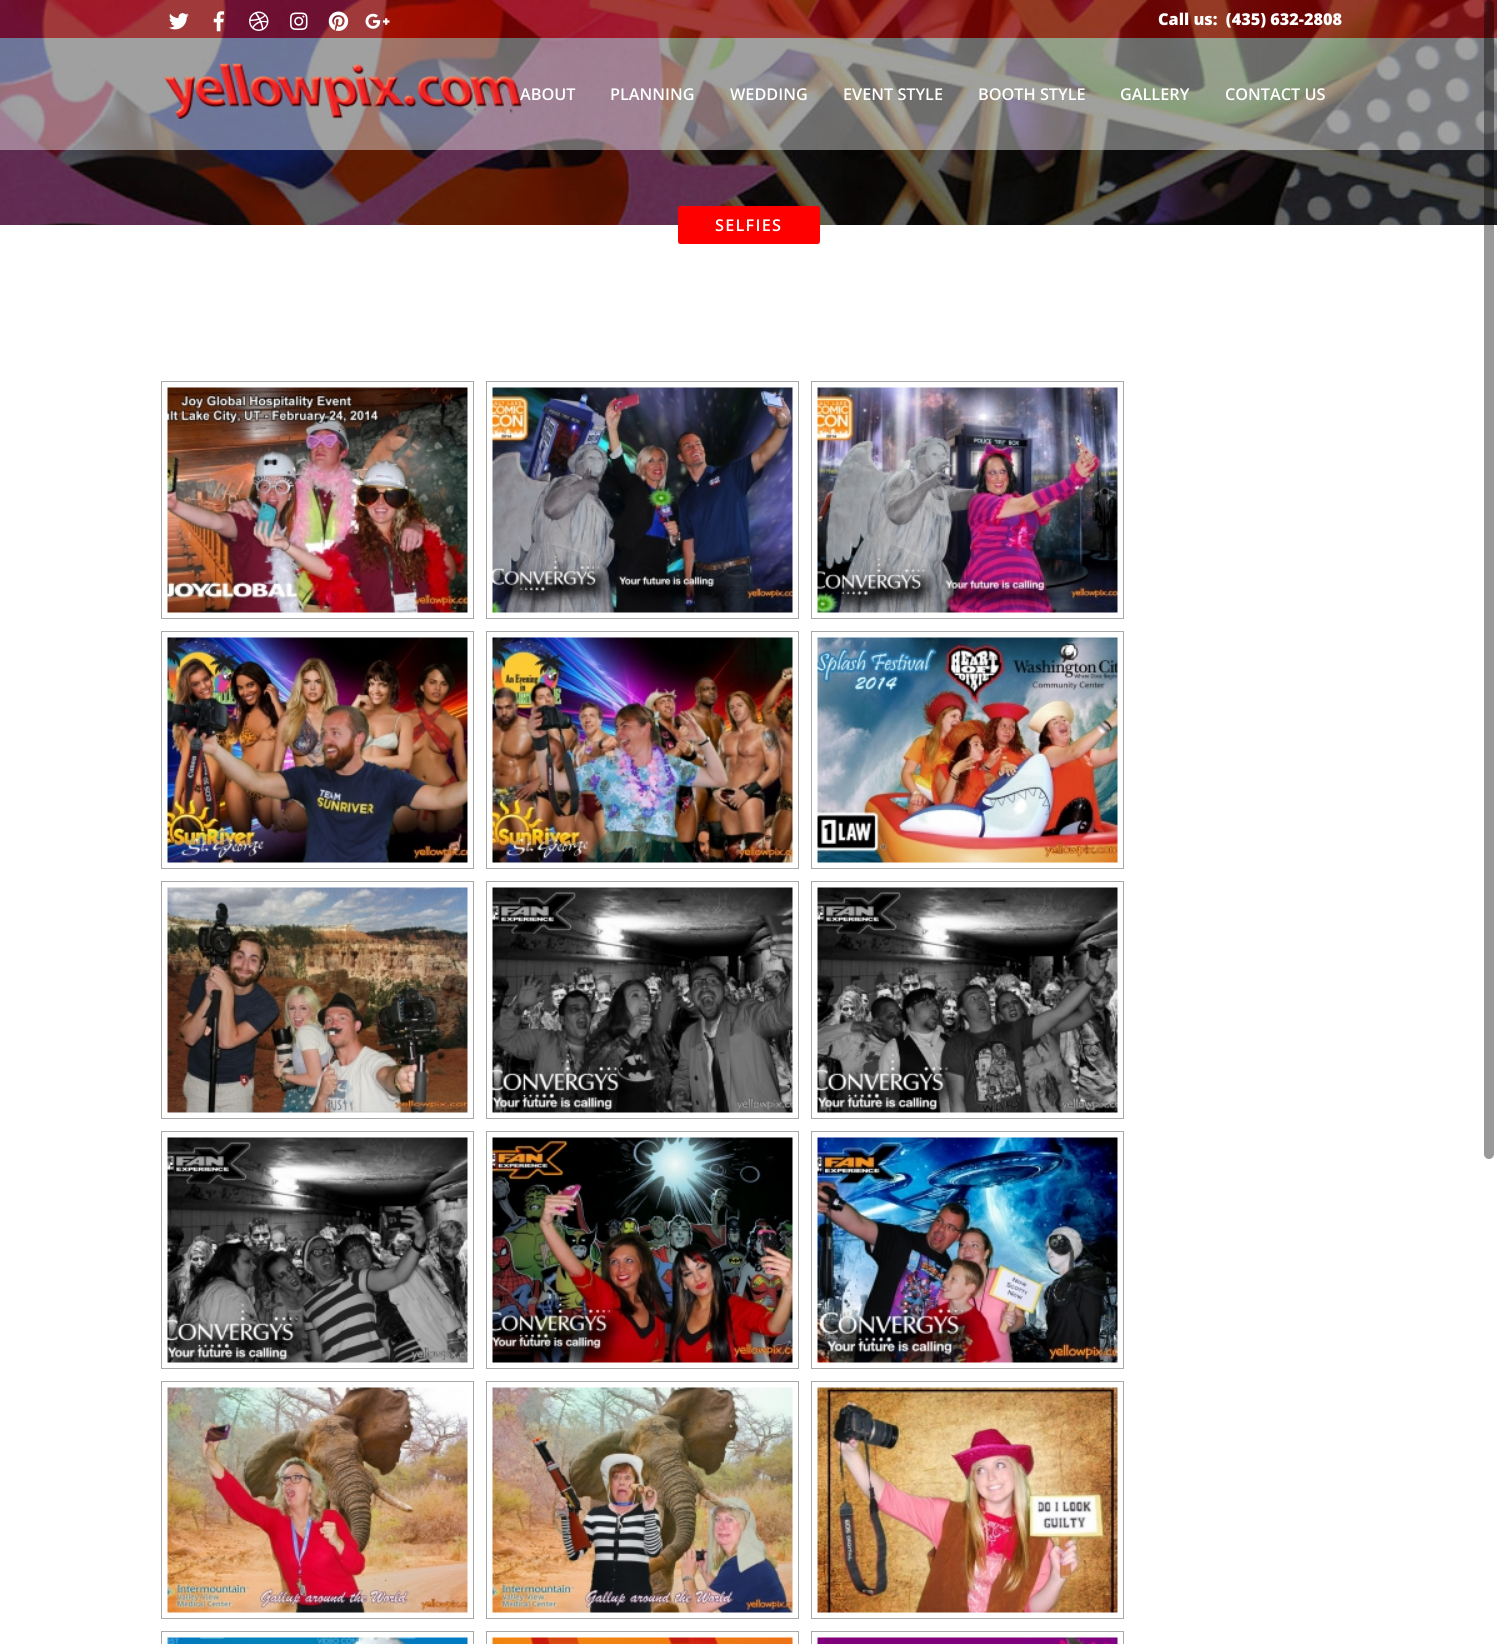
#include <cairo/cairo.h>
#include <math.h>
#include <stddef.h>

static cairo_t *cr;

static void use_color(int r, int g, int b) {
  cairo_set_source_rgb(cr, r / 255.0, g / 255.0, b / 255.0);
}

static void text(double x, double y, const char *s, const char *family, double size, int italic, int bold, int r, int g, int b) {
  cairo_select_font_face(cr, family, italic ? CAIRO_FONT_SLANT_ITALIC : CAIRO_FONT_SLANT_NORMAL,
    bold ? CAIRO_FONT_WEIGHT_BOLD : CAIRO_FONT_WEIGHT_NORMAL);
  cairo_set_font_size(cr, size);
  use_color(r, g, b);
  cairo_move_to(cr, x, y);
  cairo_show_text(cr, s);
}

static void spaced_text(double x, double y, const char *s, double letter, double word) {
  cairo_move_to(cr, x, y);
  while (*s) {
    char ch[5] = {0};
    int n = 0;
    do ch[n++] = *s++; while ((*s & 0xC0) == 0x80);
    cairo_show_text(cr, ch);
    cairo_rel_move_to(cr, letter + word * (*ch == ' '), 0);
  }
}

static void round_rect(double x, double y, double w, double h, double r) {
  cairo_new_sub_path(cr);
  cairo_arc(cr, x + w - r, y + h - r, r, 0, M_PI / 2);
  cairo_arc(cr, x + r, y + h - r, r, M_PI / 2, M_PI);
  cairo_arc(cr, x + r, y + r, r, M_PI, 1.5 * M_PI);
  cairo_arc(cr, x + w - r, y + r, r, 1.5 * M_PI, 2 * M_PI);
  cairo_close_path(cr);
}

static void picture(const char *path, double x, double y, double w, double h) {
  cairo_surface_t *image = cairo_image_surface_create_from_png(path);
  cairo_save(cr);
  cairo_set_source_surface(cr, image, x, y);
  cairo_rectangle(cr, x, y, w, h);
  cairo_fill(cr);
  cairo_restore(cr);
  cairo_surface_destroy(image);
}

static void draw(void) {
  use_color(255, 255, 255);
  cairo_paint(cr);
  picture("img_08.png", 0, 0, 1497, 225);
  cairo_set_source_rgba(cr, 1, 0, 0, 0.4);
  cairo_rectangle(cr, 0, 0, 1497, 38);
  cairo_fill(cr);
  picture("img_01.png", 169, 13, 20, 17);
  picture("img_02.png", 213, 11, 12, 21);
  picture("img_03.png", 249, 11, 20, 20);
  picture("img_04.png", 290, 12, 18, 18);
  picture("img_05.png", 328, 11, 21, 20);
  picture("img_06.png", 365, 13, 25, 16);
  cairo_set_source_rgba(cr, 1, 1, 1, 0.4);
  cairo_rectangle(cr, 0, 38, 1497, 112);
  cairo_fill(cr);
  picture("img_07.png", 163, 63, 359, 56);
  use_color(255, 0, 0);
  round_rect(678, 206, 142, 38, 2.5);
  cairo_fill(cr);
  cairo_rectangle(cr, 161.5, 381.5, 312, 237);
  use_color(169, 169, 169);
  cairo_set_line_width(cr, 1);
  cairo_stroke(cr);
  picture("img_09.png", 167, 387, 301, 226);
  cairo_rectangle(cr, 486.5, 381.5, 312, 237);
  cairo_stroke(cr);
  picture("img_10.png", 492, 387, 301, 226);
  cairo_rectangle(cr, 811.5, 381.5, 312, 237);
  cairo_stroke(cr);
  picture("img_11.png", 817, 387, 301, 226);
  cairo_rectangle(cr, 161.5, 631.5, 312, 237);
  cairo_stroke(cr);
  picture("img_12.png", 167, 637, 301, 226);
  cairo_rectangle(cr, 486.5, 631.5, 312, 237);
  cairo_stroke(cr);
  picture("img_13.png", 492, 637, 301, 226);
  cairo_rectangle(cr, 811.5, 631.5, 312, 237);
  cairo_stroke(cr);
  picture("img_14.png", 817, 637, 301, 226);
  cairo_rectangle(cr, 161.5, 881.5, 312, 237);
  cairo_stroke(cr);
  picture("img_15.png", 167, 887, 301, 226);
  cairo_rectangle(cr, 486.5, 881.5, 312, 237);
  cairo_stroke(cr);
  picture("img_16.png", 492, 887, 301, 226);
  cairo_rectangle(cr, 811.5, 881.5, 312, 237);
  cairo_stroke(cr);
  picture("img_17.png", 817, 887, 301, 226);
  cairo_rectangle(cr, 161.5, 1131.5, 312, 237);
  cairo_stroke(cr);
  picture("img_18.png", 167, 1137, 301, 226);
  cairo_rectangle(cr, 486.5, 1131.5, 312, 237);
  cairo_stroke(cr);
  picture("img_19.png", 492, 1137, 301, 226);
  cairo_rectangle(cr, 811.5, 1131.5, 312, 237);
  cairo_stroke(cr);
  picture("img_20.png", 817, 1137, 301, 226);
  cairo_rectangle(cr, 161.5, 1381.5, 312, 237);
  cairo_stroke(cr);
  picture("img_21.png", 167, 1387, 301, 226);
  cairo_rectangle(cr, 486.5, 1381.5, 312, 237);
  cairo_stroke(cr);
  picture("img_22.png", 492, 1387, 301, 226);
  cairo_rectangle(cr, 811.5, 1381.5, 312, 237);
  cairo_stroke(cr);
  picture("img_23.png", 817, 1387, 301, 226);
  cairo_rectangle(cr, 161.5, 1631.5, 312, 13);
  cairo_stroke(cr);
  picture("img_24.png", 167, 1637, 301, 7);
  cairo_rectangle(cr, 486.5, 1631.5, 312, 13);
  cairo_stroke(cr);
  picture("img_25.png", 492, 1637, 301, 7);
  cairo_rectangle(cr, 811.5, 1631.5, 312, 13);
  cairo_stroke(cr);
  picture("img_26.png", 817, 1637, 301, 7);
  cairo_set_source_rgba(cr, 0, 0, 0, 0.4);
  round_rect(1484, 0, 10, 1159, 5);
  cairo_fill(cr);
  text(1158, 25, "Call us:  (435) 632-2808", "Open Sans ExtraBold", 16.25, 0, 0, 255, 255, 255);
  text(520, 100, "ABOUT", "Open Sans SemiBold", 16.25, 0, 0, 255, 255, 255);
  text(610, 100, "PLANNING", "Open Sans SemiBold", 16.25, 0, 0, 255, 255, 255);
  text(730, 100, "WEDDING", "Open Sans SemiBold", 16.25, 0, 0, 255, 255, 255);
  text(843, 100, "EVENT STYLE", "Open Sans SemiBold", 16.25, 0, 0, 255, 255, 255);
  text(978, 100, "BOOTH STYLE", "Open Sans SemiBold", 16.25, 0, 0, 255, 255, 255);
  text(1120, 100, "GALLERY", "Open Sans SemiBold", 16.25, 0, 0, 255, 255, 255);
  text(1225, 100, "CONTACT US", "Open Sans SemiBold", 16.25, 0, 0, 255, 255, 255);
  spaced_text(715, 231, "SELFIES", 1.25, 0);
}

int main(void) {
  cairo_surface_t *surface = cairo_image_surface_create(CAIRO_FORMAT_RGB24, 1497, 1644);
  cr = cairo_create(surface);
  cairo_font_options_t *options = cairo_font_options_create();
  cairo_font_options_set_hint_metrics(options, CAIRO_HINT_METRICS_OFF);
  cairo_font_options_set_hint_style(options, CAIRO_HINT_STYLE_NONE);
  cairo_set_font_options(cr, options);
  cairo_set_miter_limit(cr, 4);
  draw();
  cairo_surface_write_to_png(surface, "out.png");
  cairo_font_options_destroy(options);
  cairo_destroy(cr);
  cairo_surface_destroy(surface);
  return 0;
}
